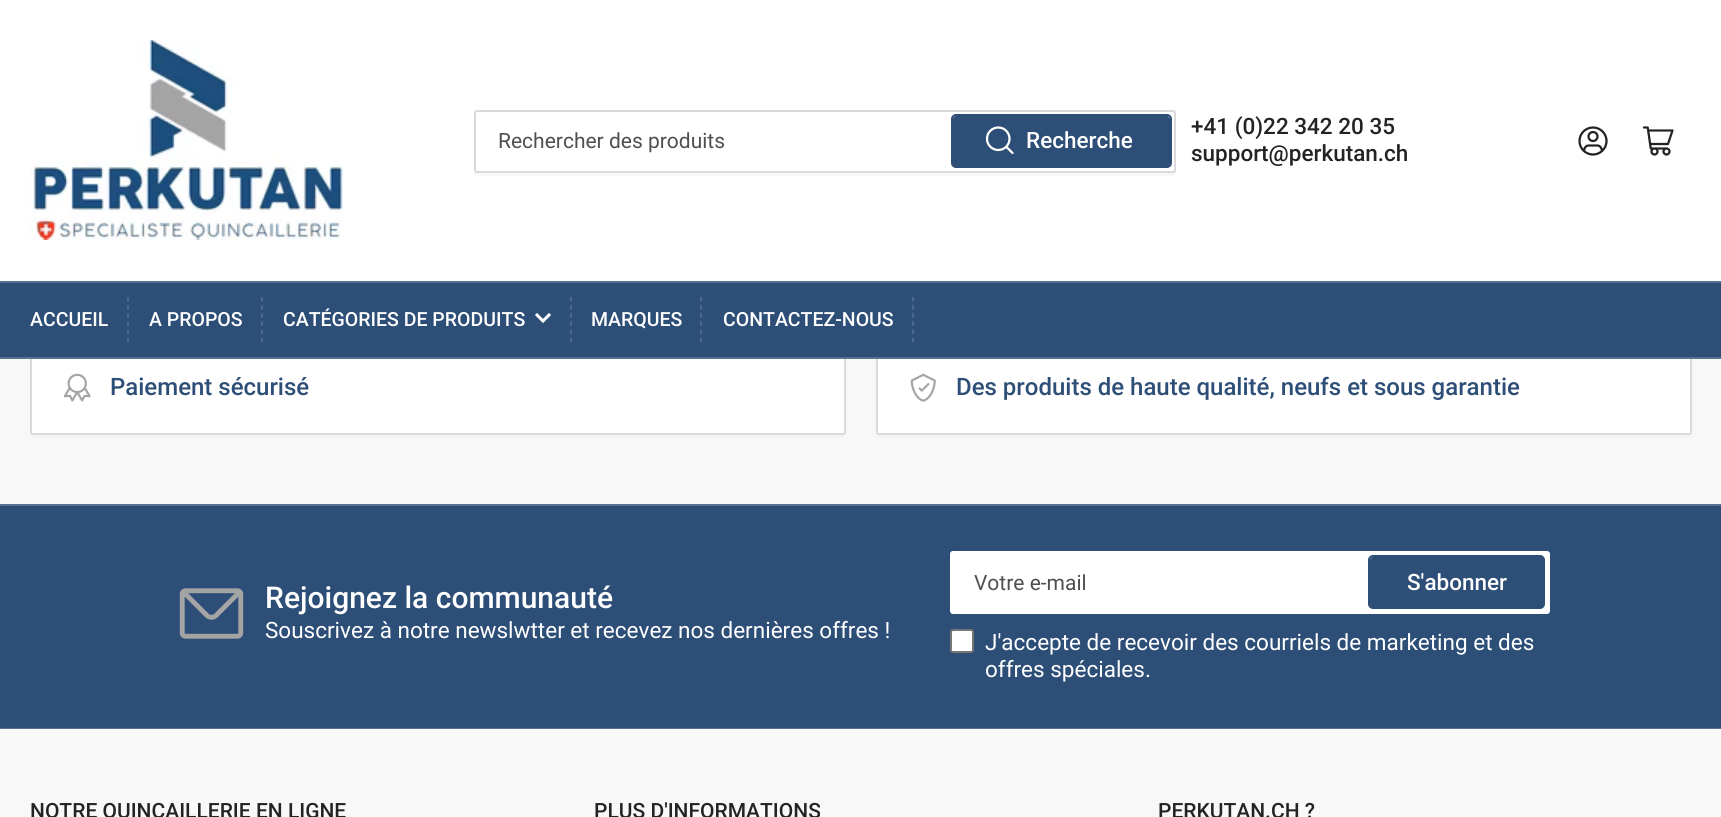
#include <cairo/cairo.h>
#include <math.h>
#include <stddef.h>

static cairo_t *cr;

static void use_color(int r, int g, int b) {
  cairo_set_source_rgb(cr, r / 255.0, g / 255.0, b / 255.0);
}

static void text(double x, double y, const char *s, const char *family, double size, int italic, int bold, int r, int g, int b) {
  cairo_select_font_face(cr, family, italic ? CAIRO_FONT_SLANT_ITALIC : CAIRO_FONT_SLANT_NORMAL,
    bold ? CAIRO_FONT_WEIGHT_BOLD : CAIRO_FONT_WEIGHT_NORMAL);
  cairo_set_font_size(cr, size);
  use_color(r, g, b);
  cairo_move_to(cr, x, y);
  cairo_show_text(cr, s);
}

static void box(double x, double y, double w, double h, int r, int g, int b) {
  use_color(r, g, b);
  cairo_rectangle(cr, x, y, w, h);
  cairo_fill(cr);
}

static void round_rect(double x, double y, double w, double h, double r) {
  cairo_new_sub_path(cr);
  cairo_arc(cr, x + w - r, y + h - r, r, 0, M_PI / 2);
  cairo_arc(cr, x + r, y + h - r, r, M_PI / 2, M_PI);
  cairo_arc(cr, x + r, y + r, r, M_PI, 1.5 * M_PI);
  cairo_arc(cr, x + w - r, y + r, r, 1.5 * M_PI, 2 * M_PI);
  cairo_close_path(cr);
}

static void picture(const char *path, double x, double y, double w, double h) {
  cairo_surface_t *image = cairo_image_surface_create_from_png(path);
  cairo_save(cr);
  cairo_set_source_surface(cr, image, x, y);
  cairo_rectangle(cr, x, y, w, h);
  cairo_fill(cr);
  cairo_restore(cr);
  cairo_surface_destroy(image);
}

static void draw(void) {
  use_color(248, 248, 248);
  cairo_paint(cr);
  box(0, 0, 1721, 281, 255, 255, 255);
  picture("img_01.png", 30, 40, 314, 200);
  use_color(248, 248, 248);
  cairo_new_path(cr);
  cairo_move_to(cr, 474, 170);
  cairo_line_to(cr, 474, 173);
  cairo_curve_to(cr, 474, 175, 475, 176, 477, 176);
  cairo_line_to(cr, 1173, 176);
  cairo_curve_to(cr, 1175, 176, 1176, 175, 1176, 173);
  cairo_line_to(cr, 1176, 170);
  cairo_curve_to(cr, 1176, 171, 1175, 172, 1173, 172);
  cairo_line_to(cr, 477, 172);
  cairo_curve_to(cr, 475, 172, 474, 171, 474, 170);
  cairo_close_path(cr);
  cairo_fill(cr);
  use_color(255, 255, 255);
  round_rect(475, 111, 700, 61, 2);
  cairo_fill_preserve(cr);
  use_color(218, 218, 218);
  cairo_stroke(cr);
  round_rect(952, 115, 219, 52, 4);
  use_color(45, 78, 119);
  cairo_stroke(cr);
  round_rect(953, 116, 217, 51, 3);
  cairo_fill(cr);
  picture("img_02.png", 985, 126, 29, 29);
  picture("img_03.png", 1578, 126, 30, 30);
  picture("img_04.png", 1642, 126, 32, 30);
  use_color(242, 242, 242);
  cairo_new_path(cr);
  cairo_move_to(cr, 30, 432);
  cairo_curve_to(cr, 30, 434, 30, 438, 33, 438);
  cairo_line_to(cr, 843, 438);
  cairo_line_to(cr, 845, 437);
  cairo_line_to(cr, 846, 432);
  cairo_curve_to(cr, 846, 434, 845, 435, 843, 435);
  cairo_line_to(cr, 33, 435);
  cairo_curve_to(cr, 31, 435, 30, 434, 30, 432);
  cairo_close_path(cr);
  cairo_fill(cr);
  use_color(255, 255, 255);
  round_rect(31, 342, 814, 92, 2);
  cairo_fill_preserve(cr);
  use_color(218, 218, 218);
  cairo_stroke(cr);
  use_color(242, 242, 242);
  cairo_new_path(cr);
  cairo_move_to(cr, 876, 432);
  cairo_curve_to(cr, 876, 434, 876, 438, 879, 438);
  cairo_line_to(cr, 1689, 438);
  cairo_line_to(cr, 1691, 437);
  cairo_line_to(cr, 1692, 432);
  cairo_curve_to(cr, 1692, 434, 1691, 435, 1689, 435);
  cairo_line_to(cr, 879, 435);
  cairo_curve_to(cr, 877, 435, 876, 434, 876, 432);
  cairo_close_path(cr);
  cairo_fill(cr);
  use_color(255, 255, 255);
  round_rect(877, 342, 814, 92, 2);
  cairo_fill_preserve(cr);
  use_color(218, 218, 218);
  cairo_stroke(cr);
  box(0, 283, 1721, 74, 45, 78, 119);
  box(0, 281, 1721, 2, 87, 113, 146);
  box(0, 357, 1721, 2, 87, 113, 146);
  cairo_new_path(cr);
  cairo_move_to(cr, 128, 297);
  cairo_line_to(cr, 128, 342);
  cairo_set_line_width(cr, 1.5);
  cairo_set_dash(cr, (double[]){4.5, 3.6}, 2, 0);
  cairo_stroke(cr);
  cairo_new_path(cr);
  cairo_move_to(cr, 262, 297);
  cairo_line_to(cr, 262, 342);
  cairo_stroke(cr);
  cairo_new_path(cr);
  cairo_move_to(cr, 549, 315);
  cairo_line_to(cr, 543, 321);
  cairo_line_to(cr, 537, 315);
  use_color(255, 255, 255);
  cairo_set_line_width(cr, 3);
  cairo_set_line_cap(cr, CAIRO_LINE_CAP_SQUARE);
  cairo_set_dash(cr, NULL, 0, 0);
  cairo_stroke(cr);
  cairo_new_path(cr);
  cairo_move_to(cr, 571, 297);
  cairo_line_to(cr, 571, 342);
  use_color(87, 113, 146);
  cairo_set_line_width(cr, 1.5);
  cairo_set_line_cap(cr, CAIRO_LINE_CAP_BUTT);
  cairo_set_dash(cr, (double[]){4.5, 3.6}, 2, 0);
  cairo_stroke(cr);
  cairo_new_path(cr);
  cairo_move_to(cr, 701, 297);
  cairo_line_to(cr, 701, 342);
  cairo_stroke(cr);
  cairo_new_path(cr);
  cairo_move_to(cr, 913, 297);
  cairo_line_to(cr, 913, 342);
  cairo_stroke(cr);
  picture("img_05.png", 63, 373, 28, 29);
  picture("img_06.png", 910, 373, 26, 29);
  box(0, 506, 1721, 222, 45, 78, 119);
  box(0, 728, 1721, 1, 87, 113, 146);
  box(0, 504, 1721, 2, 87, 113, 146);
  picture("img_07.png", 179, 588, 65, 51);
  use_color(255, 255, 255);
  round_rect(950, 551, 600, 63, 3);
  cairo_fill(cr);
  round_rect(951, 552, 598, 61, 2);
  cairo_set_source_rgba(cr, 1, 1, 1, 0.2);
  cairo_set_line_width(cr, 2);
  cairo_set_dash(cr, NULL, 0, 0);
  cairo_stroke(cr);
  round_rect(1369, 556, 175, 52, 4);
  use_color(45, 78, 119);
  cairo_stroke(cr);
  round_rect(1370, 557, 174, 51, 3);
  cairo_fill(cr);
  use_color(255, 255, 255);
  round_rect(951, 630, 22, 22, 2);
  cairo_fill_preserve(cr);
  use_color(118, 118, 118);
  cairo_stroke(cr);
  text(498, 148, "Rechercher des produits", "Roboto", 21, 0, 0, 79, 79, 79);
  text(1026, 148, "Recherche", "Roboto Medium", 22.5, 0, 0, 255, 255, 255);
  text(1191, 134, "+41 (0)22 342 20 35", "Roboto Medium", 22.5, 0, 0, 35, 35, 35);
  text(1191, 161, "support@perkutan.ch", "Roboto Medium", 22.5, 0, 0, 35, 35, 35);
  text(30, 326, "ACCUEIL", "Roboto Medium", 19.5, 0, 0, 255, 255, 255);
  text(149, 326, "A PROPOS", "Roboto Medium", 19.5, 0, 0, 255, 255, 255);
  text(283, 326, "CATÉGORIES DE PRODUITS", "Roboto Medium", 19.5, 0, 0, 255, 255, 255);
  text(591, 326, "MARQUES", "Roboto Medium", 19.5, 0, 0, 255, 255, 255);
  text(723, 326, "CONTACTEZ-NOUS", "Roboto Medium", 19.5, 0, 0, 255, 255, 255);
  text(110, 395, "Paiement sécurisé", "Roboto Medium", 24, 0, 0, 45, 78, 119);
  text(956, 395, "Des produits de haute qualité, neufs et sous garantie", "Roboto Medium", 24, 0, 0, 45, 78, 119);
  text(265, 608, "Rejoignez la communauté", "Roboto Medium", 30, 0, 0, 255, 255, 255);
  text(265, 638, "Souscrivez à notre newslwtter et recevez nos dernières offres !", "Roboto", 22.5, 0, 0, 255, 255, 255);
  text(974, 590, "Votre e-mail", "Roboto", 21, 0, 0, 79, 79, 79);
  text(1407, 590, "S'abonner", "Roboto Medium", 22.5, 0, 0, 255, 255, 255);
  text(985, 650, "J'accepte de recevoir des courriels de marketing et des", "Roboto", 22.5, 0, 0, 255, 255, 255);
  text(985, 677, "offres spéciales.", "Roboto", 22.5, 0, 0, 255, 255, 255);
  text(30, 818, "NOTRE QUINCAILLERIE EN LIGNE", "Roboto Medium", 21, 0, 0, 35, 35, 35);
  text(594, 818, "PLUS D'INFORMATIONS", "Roboto Medium", 21, 0, 0, 35, 35, 35);
  text(1158, 818, "PERKUTAN.CH ?", "Roboto Medium", 21, 0, 0, 35, 35, 35);
}

int main(void) {
  cairo_surface_t *surface = cairo_image_surface_create(CAIRO_FORMAT_RGB24, 1721, 817);
  cr = cairo_create(surface);
  cairo_font_options_t *options = cairo_font_options_create();
  cairo_font_options_set_hint_metrics(options, CAIRO_HINT_METRICS_OFF);
  cairo_font_options_set_hint_style(options, CAIRO_HINT_STYLE_NONE);
  cairo_set_font_options(cr, options);
  cairo_set_miter_limit(cr, 4);
  draw();
  cairo_surface_write_to_png(surface, "out.png");
  cairo_font_options_destroy(options);
  cairo_destroy(cr);
  cairo_surface_destroy(surface);
  return 0;
}
